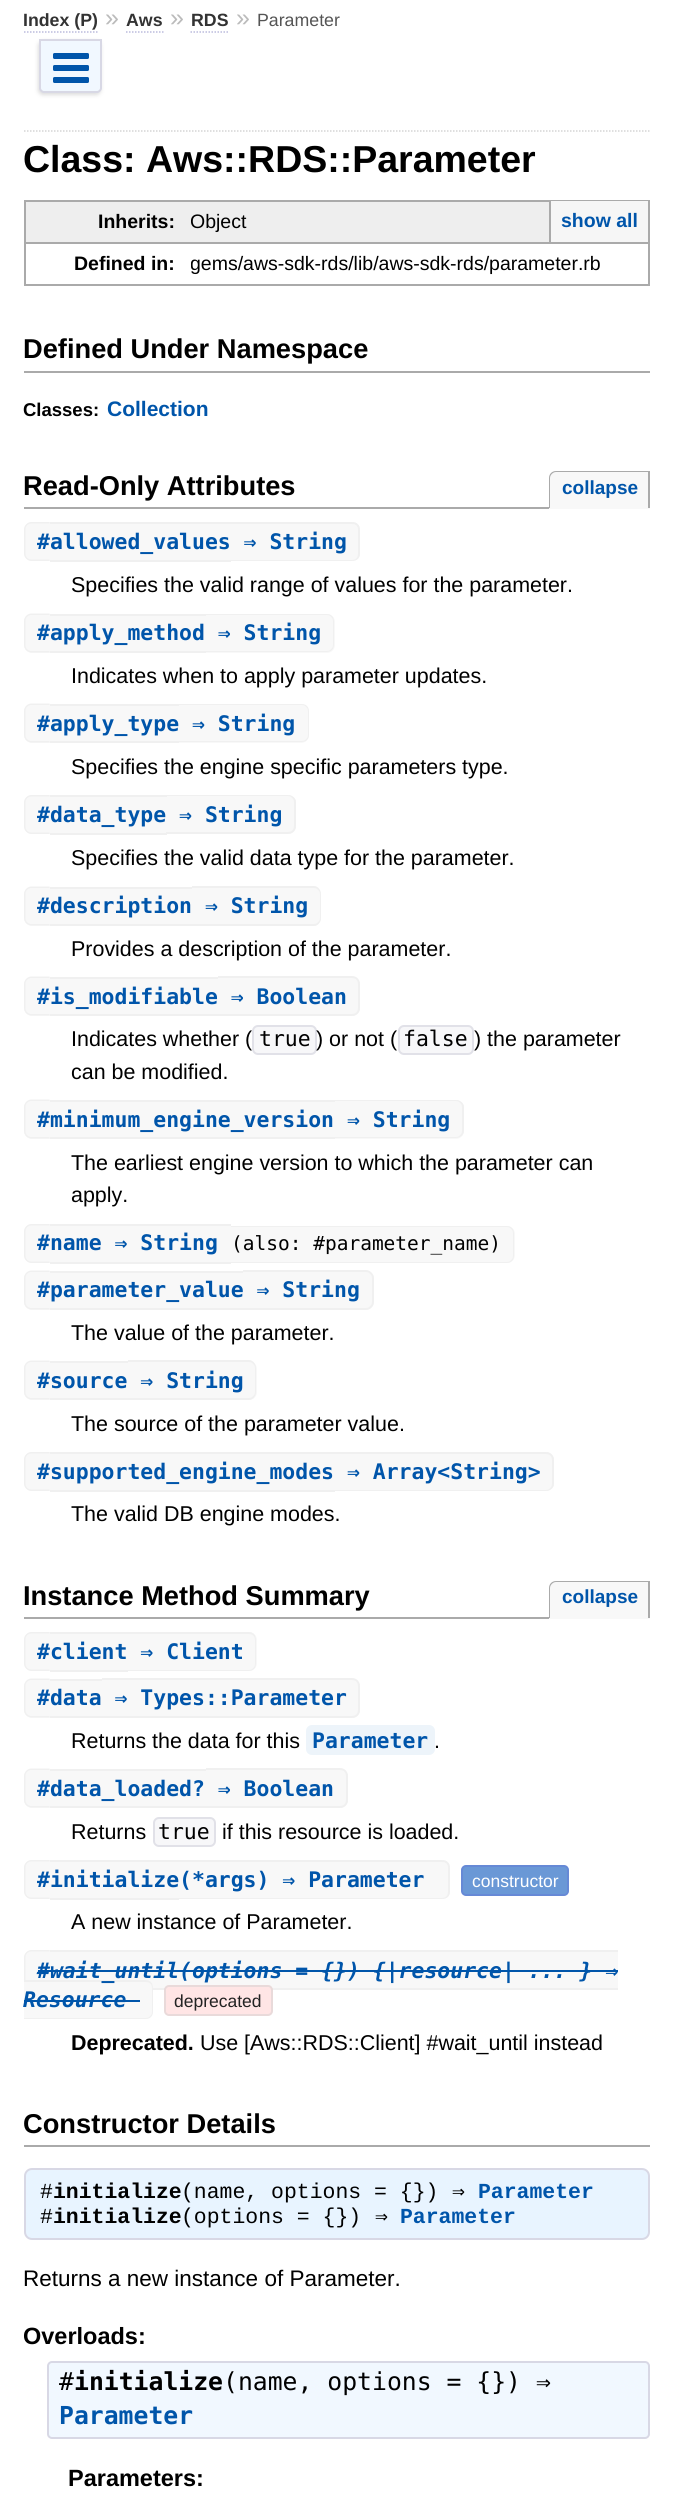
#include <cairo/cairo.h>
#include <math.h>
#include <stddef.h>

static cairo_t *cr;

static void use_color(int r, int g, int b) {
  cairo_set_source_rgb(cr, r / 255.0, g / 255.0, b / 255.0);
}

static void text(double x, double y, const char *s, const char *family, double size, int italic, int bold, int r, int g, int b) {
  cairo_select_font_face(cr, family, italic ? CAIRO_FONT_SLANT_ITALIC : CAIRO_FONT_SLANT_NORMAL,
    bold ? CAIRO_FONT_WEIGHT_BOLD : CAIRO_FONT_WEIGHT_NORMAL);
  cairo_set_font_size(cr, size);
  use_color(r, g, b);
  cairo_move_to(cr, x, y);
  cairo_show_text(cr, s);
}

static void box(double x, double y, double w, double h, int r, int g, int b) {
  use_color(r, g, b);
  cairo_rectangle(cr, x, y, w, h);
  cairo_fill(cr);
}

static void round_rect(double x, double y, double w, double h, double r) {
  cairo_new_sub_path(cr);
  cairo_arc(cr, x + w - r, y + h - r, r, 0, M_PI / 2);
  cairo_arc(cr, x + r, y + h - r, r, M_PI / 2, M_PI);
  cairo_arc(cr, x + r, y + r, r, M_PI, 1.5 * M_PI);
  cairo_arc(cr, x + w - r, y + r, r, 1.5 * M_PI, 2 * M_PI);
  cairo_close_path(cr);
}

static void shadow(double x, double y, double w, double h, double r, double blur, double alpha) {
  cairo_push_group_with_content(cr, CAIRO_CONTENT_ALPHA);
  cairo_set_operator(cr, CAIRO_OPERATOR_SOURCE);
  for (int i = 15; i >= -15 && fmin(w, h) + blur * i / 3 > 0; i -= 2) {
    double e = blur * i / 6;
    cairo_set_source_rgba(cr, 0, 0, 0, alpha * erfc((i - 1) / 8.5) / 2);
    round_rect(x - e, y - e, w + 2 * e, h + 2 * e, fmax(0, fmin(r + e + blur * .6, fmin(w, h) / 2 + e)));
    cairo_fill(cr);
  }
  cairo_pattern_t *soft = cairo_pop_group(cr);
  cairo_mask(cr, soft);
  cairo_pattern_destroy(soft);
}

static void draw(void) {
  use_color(255, 255, 255);
  cairo_paint(cr);
  cairo_new_path(cr);
  cairo_move_to(cr, 24, 32);
  cairo_line_to(cr, 99, 32);
  use_color(187, 187, 221);
  cairo_set_line_width(cr, 1.5);
  cairo_set_dash(cr, (double[]){1.5, 1.5}, 2, 0);
  cairo_stroke(cr);
  cairo_new_path(cr);
  cairo_move_to(cr, 126, 32);
  cairo_line_to(cr, 163.5, 32);
  cairo_stroke(cr);
  cairo_new_path(cr);
  cairo_move_to(cr, 190.5, 32);
  cairo_line_to(cr, 228, 32);
  cairo_stroke(cr);
  use_color(221, 221, 221);
  shadow(38, 41, 63, 54, 5, 2, 1);
  use_color(241, 248, 255);
  cairo_new_path(cr);
  cairo_move_to(cr, 40, 40);
  cairo_line_to(cr, 101, 40);
  cairo_line_to(cr, 101, 88);
  cairo_curve_to(cr, 101, 90, 99, 92, 97, 92);
  cairo_line_to(cr, 44, 92);
  cairo_curve_to(cr, 42, 92, 40, 90, 40, 88);
  cairo_close_path(cr);
  cairo_fill_preserve(cr);
  use_color(216, 216, 229);
  cairo_set_line_width(cr, 2);
  cairo_set_dash(cr, NULL, 0, 0);
  cairo_stroke(cr);
  use_color(0, 85, 170);
  round_rect(53, 53, 36, 6, 1.5);
  cairo_fill(cr);
  round_rect(53, 65, 36, 6, 1.5);
  cairo_fill(cr);
  round_rect(53, 77, 36, 6, 1.5);
  cairo_fill(cr);
  cairo_new_path(cr);
  cairo_move_to(cr, 24, 131);
  cairo_line_to(cr, 649.5, 131);
  use_color(213, 213, 213);
  cairo_set_line_width(cr, 1.5);
  cairo_set_dash(cr, (double[]){1.5, 1.5}, 2, 0);
  cairo_stroke(cr);
  box(26, 202, 523, 40, 238, 238, 238);
  box(24, 200, 626, 2, 170, 170, 170);
  box(24, 200, 2, 42, 170, 170, 170);
  box(24, 242, 626, 2, 170, 170, 170);
  box(648, 200, 2, 85, 170, 170, 170);
  box(551, 201, 97, 41, 246, 246, 246);
  box(549, 201, 2, 41, 170, 170, 170);
  box(24, 284, 167, 2, 170, 170, 170);
  box(24, 242, 2, 43, 170, 170, 170);
  box(191, 284, 459, 2, 170, 170, 170);
  box(24, 371, 626, 2, 170, 170, 170);
  box(24, 507, 525, 2, 170, 170, 170);
  use_color(248, 248, 248);
  cairo_new_path(cr);
  cairo_move_to(cr, 557, 471);
  cairo_line_to(cr, 650, 471);
  cairo_line_to(cr, 650, 509);
  cairo_line_to(cr, 549, 509);
  cairo_line_to(cr, 549, 479);
  cairo_curve_to(cr, 549, 474.5, 552.5, 471, 557, 471);
  cairo_close_path(cr);
  cairo_fill(cr);
  use_color(170, 170, 170);
  cairo_set_fill_rule(cr, CAIRO_FILL_RULE_EVEN_ODD);
  cairo_new_path(cr);
  cairo_move_to(cr, 556, 471);
  cairo_line_to(cr, 650, 471);
  cairo_line_to(cr, 650, 508);
  cairo_line_to(cr, 549, 508);
  cairo_line_to(cr, 549, 478);
  cairo_curve_to(cr, 549, 474, 552, 471, 556, 471);
  cairo_close_path(cr);
  cairo_move_to(cr, 556, 472);
  cairo_line_to(cr, 648, 472);
  cairo_line_to(cr, 648, 508);
  cairo_line_to(cr, 550, 508);
  cairo_line_to(cr, 550, 478);
  cairo_curve_to(cr, 550, 475, 553, 472, 556, 472);
  cairo_close_path(cr);
  cairo_fill(cr);
  use_color(248, 248, 248);
  cairo_new_path(cr);
  cairo_move_to(cr, 32, 522);
  cairo_line_to(cr, 50, 522);
  cairo_line_to(cr, 50, 561);
  cairo_line_to(cr, 32, 561);
  cairo_curve_to(cr, 27.5, 561, 24, 557.5, 24, 553);
  cairo_line_to(cr, 24, 530);
  cairo_curve_to(cr, 24, 525.5, 27.5, 522, 32, 522);
  cairo_close_path(cr);
  cairo_fill(cr);
  use_color(240, 240, 240);
  cairo_new_path(cr);
  cairo_move_to(cr, 31.5, 522);
  cairo_line_to(cr, 49.5, 522);
  cairo_line_to(cr, 49.5, 561);
  cairo_line_to(cr, 31.5, 561);
  cairo_curve_to(cr, 27.5, 561, 24, 557.5, 24, 553.5);
  cairo_line_to(cr, 24, 529.5);
  cairo_curve_to(cr, 24, 525.5, 27.5, 522, 31.5, 522);
  cairo_close_path(cr);
  cairo_move_to(cr, 31.5, 523.5);
  cairo_line_to(cr, 49.5, 523.5);
  cairo_line_to(cr, 49.5, 559.5);
  cairo_line_to(cr, 31.5, 559.5);
  cairo_curve_to(cr, 28, 559.5, 25.5, 557, 25.5, 553.5);
  cairo_line_to(cr, 25.5, 529.5);
  cairo_curve_to(cr, 25.5, 526, 28, 523.5, 31.5, 523.5);
  cairo_close_path(cr);
  cairo_fill(cr);
  box(50, 524, 181, 36, 248, 248, 248);
  box(50, 522, 181, 2, 240, 240, 240);
  box(50, 560, 181, 2, 240, 240, 240);
  use_color(248, 248, 248);
  cairo_new_path(cr);
  cairo_move_to(cr, 231, 522);
  cairo_line_to(cr, 352, 522);
  cairo_curve_to(cr, 356.5, 522, 360, 525.5, 360, 530);
  cairo_line_to(cr, 360, 553);
  cairo_curve_to(cr, 360, 557.5, 356.5, 561, 352, 561);
  cairo_line_to(cr, 231, 561);
  cairo_close_path(cr);
  cairo_fill(cr);
  use_color(240, 240, 240);
  cairo_new_path(cr);
  cairo_move_to(cr, 231, 522);
  cairo_line_to(cr, 352, 522);
  cairo_curve_to(cr, 357, 522, 360, 525, 360, 530);
  cairo_line_to(cr, 360, 554);
  cairo_curve_to(cr, 360, 558, 357, 561, 352, 561);
  cairo_line_to(cr, 231, 561);
  cairo_close_path(cr);
  cairo_move_to(cr, 231, 524);
  cairo_line_to(cr, 352, 524);
  cairo_curve_to(cr, 356, 524, 358, 526, 358, 530);
  cairo_line_to(cr, 358, 554);
  cairo_curve_to(cr, 358, 557, 356, 560, 352, 560);
  cairo_line_to(cr, 231, 560);
  cairo_close_path(cr);
  cairo_fill(cr);
  use_color(248, 248, 248);
  cairo_new_path(cr);
  cairo_move_to(cr, 32, 614);
  cairo_line_to(cr, 50, 614);
  cairo_line_to(cr, 50, 653);
  cairo_line_to(cr, 32, 653);
  cairo_curve_to(cr, 27.5, 653, 24, 649.5, 24, 645);
  cairo_line_to(cr, 24, 622);
  cairo_curve_to(cr, 24, 617.5, 27.5, 614, 32, 614);
  cairo_close_path(cr);
  cairo_fill(cr);
  use_color(240, 240, 240);
  cairo_new_path(cr);
  cairo_move_to(cr, 31.5, 613.5);
  cairo_line_to(cr, 49.5, 613.5);
  cairo_line_to(cr, 49.5, 652.5);
  cairo_line_to(cr, 31.5, 652.5);
  cairo_curve_to(cr, 27.5, 652.5, 24, 649, 24, 645);
  cairo_line_to(cr, 24, 621);
  cairo_curve_to(cr, 24, 617, 27.5, 613.5, 31.5, 613.5);
  cairo_close_path(cr);
  cairo_move_to(cr, 31.5, 615);
  cairo_line_to(cr, 49.5, 615);
  cairo_line_to(cr, 49.5, 651);
  cairo_line_to(cr, 31.5, 651);
  cairo_curve_to(cr, 28, 651, 25.5, 648.5, 25.5, 645);
  cairo_line_to(cr, 25.5, 621);
  cairo_curve_to(cr, 25.5, 617.5, 28, 615, 31.5, 615);
  cairo_close_path(cr);
  cairo_fill(cr);
  box(50, 616, 156, 35, 248, 248, 248);
  box(50, 614, 156, 2, 240, 240, 240);
  box(50, 651, 156, 2, 240, 240, 240);
  use_color(248, 248, 248);
  cairo_new_path(cr);
  cairo_move_to(cr, 206, 614);
  cairo_line_to(cr, 327, 614);
  cairo_curve_to(cr, 331.5, 614, 335, 617.5, 335, 622);
  cairo_line_to(cr, 335, 645);
  cairo_curve_to(cr, 335, 649.5, 331.5, 653, 327, 653);
  cairo_line_to(cr, 206, 653);
  cairo_close_path(cr);
  cairo_fill(cr);
  use_color(240, 240, 240);
  cairo_new_path(cr);
  cairo_move_to(cr, 206, 614);
  cairo_line_to(cr, 327, 614);
  cairo_curve_to(cr, 331, 614, 334, 617, 334, 621);
  cairo_line_to(cr, 334, 645);
  cairo_curve_to(cr, 334, 649, 331, 652, 327, 652);
  cairo_line_to(cr, 206, 652);
  cairo_close_path(cr);
  cairo_move_to(cr, 206, 615);
  cairo_line_to(cr, 327, 615);
  cairo_curve_to(cr, 330, 615, 333, 618, 333, 621);
  cairo_line_to(cr, 333, 645);
  cairo_curve_to(cr, 333, 648, 330, 651, 327, 651);
  cairo_line_to(cr, 206, 651);
  cairo_close_path(cr);
  cairo_fill(cr);
  use_color(248, 248, 248);
  cairo_new_path(cr);
  cairo_move_to(cr, 32, 704);
  cairo_line_to(cr, 50, 704);
  cairo_line_to(cr, 50, 743);
  cairo_line_to(cr, 32, 743);
  cairo_curve_to(cr, 27.5, 743, 24, 739.5, 24, 735);
  cairo_line_to(cr, 24, 712);
  cairo_curve_to(cr, 24, 707.5, 27.5, 704, 32, 704);
  cairo_close_path(cr);
  cairo_fill(cr);
  use_color(240, 240, 240);
  cairo_new_path(cr);
  cairo_move_to(cr, 31.5, 703.5);
  cairo_line_to(cr, 49.5, 703.5);
  cairo_line_to(cr, 49.5, 742.5);
  cairo_line_to(cr, 31.5, 742.5);
  cairo_curve_to(cr, 27.5, 742.5, 24, 739, 24, 735);
  cairo_line_to(cr, 24, 711);
  cairo_curve_to(cr, 24, 707, 27.5, 703.5, 31.5, 703.5);
  cairo_close_path(cr);
  cairo_move_to(cr, 31.5, 705);
  cairo_line_to(cr, 49.5, 705);
  cairo_line_to(cr, 49.5, 741);
  cairo_line_to(cr, 31.5, 741);
  cairo_curve_to(cr, 28, 741, 25.5, 738.5, 25.5, 735);
  cairo_line_to(cr, 25.5, 711);
  cairo_curve_to(cr, 25.5, 707.5, 28, 705, 31.5, 705);
  cairo_close_path(cr);
  cairo_fill(cr);
  box(50, 706, 129, 35, 248, 248, 248);
  box(50, 704, 129, 2, 240, 240, 240);
  box(50, 741, 129, 2, 240, 240, 240);
  use_color(248, 248, 248);
  cairo_new_path(cr);
  cairo_move_to(cr, 179, 704);
  cairo_line_to(cr, 301, 704);
  cairo_curve_to(cr, 305.5, 704, 309, 707.5, 309, 712);
  cairo_line_to(cr, 309, 735);
  cairo_curve_to(cr, 309, 739.5, 305.5, 743, 301, 743);
  cairo_line_to(cr, 179, 743);
  cairo_close_path(cr);
  cairo_fill(cr);
  use_color(240, 240, 240);
  cairo_new_path(cr);
  cairo_move_to(cr, 178, 704);
  cairo_line_to(cr, 302, 704);
  cairo_curve_to(cr, 306, 704, 309, 707, 309, 711);
  cairo_line_to(cr, 309, 735);
  cairo_curve_to(cr, 309, 739, 306, 742, 302, 742);
  cairo_line_to(cr, 178, 742);
  cairo_close_path(cr);
  cairo_move_to(cr, 178, 705);
  cairo_line_to(cr, 302, 705);
  cairo_curve_to(cr, 305, 705, 308, 708, 308, 711);
  cairo_line_to(cr, 308, 735);
  cairo_curve_to(cr, 308, 738, 305, 741, 302, 741);
  cairo_line_to(cr, 178, 741);
  cairo_close_path(cr);
  cairo_fill(cr);
  use_color(248, 248, 248);
  cairo_new_path(cr);
  cairo_move_to(cr, 32, 795);
  cairo_line_to(cr, 50, 795);
  cairo_line_to(cr, 50, 834);
  cairo_line_to(cr, 32, 834);
  cairo_curve_to(cr, 27.5, 834, 24, 830.5, 24, 826);
  cairo_line_to(cr, 24, 803);
  cairo_curve_to(cr, 24, 798.5, 27.5, 795, 32, 795);
  cairo_close_path(cr);
  cairo_fill(cr);
  use_color(240, 240, 240);
  cairo_new_path(cr);
  cairo_move_to(cr, 31.5, 795);
  cairo_line_to(cr, 49.5, 795);
  cairo_line_to(cr, 49.5, 834);
  cairo_line_to(cr, 31.5, 834);
  cairo_curve_to(cr, 27.5, 834, 24, 830.5, 24, 826.5);
  cairo_line_to(cr, 24, 802.5);
  cairo_curve_to(cr, 24, 798.5, 27.5, 795, 31.5, 795);
  cairo_close_path(cr);
  cairo_move_to(cr, 31.5, 796.5);
  cairo_line_to(cr, 49.5, 796.5);
  cairo_line_to(cr, 49.5, 832.5);
  cairo_line_to(cr, 31.5, 832.5);
  cairo_curve_to(cr, 28, 832.5, 25.5, 830, 25.5, 826.5);
  cairo_line_to(cr, 25.5, 802.5);
  cairo_curve_to(cr, 25.5, 799, 28, 796.5, 31.5, 796.5);
  cairo_close_path(cr);
  cairo_fill(cr);
  box(50, 797, 117, 36, 248, 248, 248);
  box(50, 795, 117, 2, 240, 240, 240);
  box(50, 833, 117, 2, 240, 240, 240);
  use_color(248, 248, 248);
  cairo_new_path(cr);
  cairo_move_to(cr, 167, 795);
  cairo_line_to(cr, 288, 795);
  cairo_curve_to(cr, 292.5, 795, 296, 798.5, 296, 803);
  cairo_line_to(cr, 296, 826);
  cairo_curve_to(cr, 296, 830.5, 292.5, 834, 288, 834);
  cairo_line_to(cr, 167, 834);
  cairo_close_path(cr);
  cairo_fill(cr);
  use_color(240, 240, 240);
  cairo_new_path(cr);
  cairo_move_to(cr, 166, 795);
  cairo_line_to(cr, 288, 795);
  cairo_curve_to(cr, 292, 795, 296, 798, 296, 802);
  cairo_line_to(cr, 296, 826);
  cairo_curve_to(cr, 296, 831, 292, 834, 288, 834);
  cairo_line_to(cr, 166, 834);
  cairo_close_path(cr);
  cairo_move_to(cr, 166, 796);
  cairo_line_to(cr, 288, 796);
  cairo_curve_to(cr, 291, 796, 294, 799, 294, 802);
  cairo_line_to(cr, 294, 826);
  cairo_curve_to(cr, 294, 830, 291, 832, 288, 832);
  cairo_line_to(cr, 166, 832);
  cairo_close_path(cr);
  cairo_fill(cr);
  use_color(248, 248, 248);
  cairo_new_path(cr);
  cairo_move_to(cr, 32, 887);
  cairo_line_to(cr, 50, 887);
  cairo_line_to(cr, 50, 926);
  cairo_line_to(cr, 32, 926);
  cairo_curve_to(cr, 27.5, 926, 24, 922.5, 24, 918);
  cairo_line_to(cr, 24, 895);
  cairo_curve_to(cr, 24, 890.5, 27.5, 887, 32, 887);
  cairo_close_path(cr);
  cairo_fill(cr);
  use_color(240, 240, 240);
  cairo_new_path(cr);
  cairo_move_to(cr, 31.5, 886.5);
  cairo_line_to(cr, 49.5, 886.5);
  cairo_line_to(cr, 49.5, 925.5);
  cairo_line_to(cr, 31.5, 925.5);
  cairo_curve_to(cr, 27.5, 925.5, 24, 922, 24, 918);
  cairo_line_to(cr, 24, 894);
  cairo_curve_to(cr, 24, 890, 27.5, 886.5, 31.5, 886.5);
  cairo_close_path(cr);
  cairo_move_to(cr, 31.5, 888);
  cairo_line_to(cr, 49.5, 888);
  cairo_line_to(cr, 49.5, 924);
  cairo_line_to(cr, 31.5, 924);
  cairo_curve_to(cr, 28, 924, 25.5, 921.5, 25.5, 918);
  cairo_line_to(cr, 25.5, 894);
  cairo_curve_to(cr, 25.5, 890.5, 28, 888, 31.5, 888);
  cairo_close_path(cr);
  cairo_fill(cr);
  box(50, 889, 142, 35, 248, 248, 248);
  box(50, 887, 142, 2, 240, 240, 240);
  box(50, 924, 142, 2, 240, 240, 240);
  use_color(248, 248, 248);
  cairo_new_path(cr);
  cairo_move_to(cr, 192, 887);
  cairo_line_to(cr, 313, 887);
  cairo_curve_to(cr, 317.5, 887, 321, 890.5, 321, 895);
  cairo_line_to(cr, 321, 918);
  cairo_curve_to(cr, 321, 922.5, 317.5, 926, 313, 926);
  cairo_line_to(cr, 192, 926);
  cairo_close_path(cr);
  cairo_fill(cr);
  use_color(240, 240, 240);
  cairo_new_path(cr);
  cairo_move_to(cr, 192, 886);
  cairo_line_to(cr, 314, 886);
  cairo_curve_to(cr, 318, 886, 321, 890, 321, 894);
  cairo_line_to(cr, 321, 918);
  cairo_curve_to(cr, 321, 922, 318, 926, 314, 926);
  cairo_line_to(cr, 192, 926);
  cairo_close_path(cr);
  cairo_move_to(cr, 192, 888);
  cairo_line_to(cr, 314, 888);
  cairo_curve_to(cr, 317, 888, 320, 891, 320, 894);
  cairo_line_to(cr, 320, 918);
  cairo_curve_to(cr, 320, 921, 317, 924, 314, 924);
  cairo_line_to(cr, 192, 924);
  cairo_close_path(cr);
  cairo_fill(cr);
  use_color(248, 248, 248);
  cairo_new_path(cr);
  cairo_move_to(cr, 32, 977);
  cairo_line_to(cr, 50, 977);
  cairo_line_to(cr, 50, 1016);
  cairo_line_to(cr, 32, 1016);
  cairo_curve_to(cr, 27.5, 1016, 24, 1012.5, 24, 1008);
  cairo_line_to(cr, 24, 985);
  cairo_curve_to(cr, 24, 980.5, 27.5, 977, 32, 977);
  cairo_close_path(cr);
  cairo_fill(cr);
  use_color(240, 240, 240);
  cairo_new_path(cr);
  cairo_move_to(cr, 31.5, 976.5);
  cairo_line_to(cr, 49.5, 976.5);
  cairo_line_to(cr, 49.5, 1015.5);
  cairo_line_to(cr, 31.5, 1015.5);
  cairo_curve_to(cr, 27.5, 1015.5, 24, 1012, 24, 1008);
  cairo_line_to(cr, 24, 984);
  cairo_curve_to(cr, 24, 980, 27.5, 976.5, 31.5, 976.5);
  cairo_close_path(cr);
  cairo_move_to(cr, 31.5, 978);
  cairo_line_to(cr, 49.5, 978);
  cairo_line_to(cr, 49.5, 1014);
  cairo_line_to(cr, 31.5, 1014);
  cairo_curve_to(cr, 28, 1014, 25.5, 1011.5, 25.5, 1008);
  cairo_line_to(cr, 25.5, 984);
  cairo_curve_to(cr, 25.5, 980.5, 28, 978, 31.5, 978);
  cairo_close_path(cr);
  cairo_fill(cr);
  box(50, 979, 168, 35, 248, 248, 248);
  box(50, 977, 168, 2, 240, 240, 240);
  box(50, 1014, 168, 2, 240, 240, 240);
  use_color(248, 248, 248);
  cairo_new_path(cr);
  cairo_move_to(cr, 218, 977);
  cairo_line_to(cr, 352, 977);
  cairo_curve_to(cr, 356.5, 977, 360, 980.5, 360, 985);
  cairo_line_to(cr, 360, 1008);
  cairo_curve_to(cr, 360, 1012.5, 356.5, 1016, 352, 1016);
  cairo_line_to(cr, 218, 1016);
  cairo_close_path(cr);
  cairo_fill(cr);
  use_color(240, 240, 240);
  cairo_new_path(cr);
  cairo_move_to(cr, 218, 976);
  cairo_line_to(cr, 352, 976);
  cairo_curve_to(cr, 357, 976, 360, 980, 360, 984);
  cairo_line_to(cr, 360, 1008);
  cairo_curve_to(cr, 360, 1012, 357, 1016, 352, 1016);
  cairo_line_to(cr, 218, 1016);
  cairo_close_path(cr);
  cairo_move_to(cr, 218, 978);
  cairo_line_to(cr, 352, 978);
  cairo_curve_to(cr, 356, 978, 358, 981, 358, 984);
  cairo_line_to(cr, 358, 1008);
  cairo_curve_to(cr, 358, 1011, 356, 1014, 352, 1014);
  cairo_line_to(cr, 218, 1014);
  cairo_close_path(cr);
  cairo_fill(cr);
  use_color(247, 247, 249);
  round_rect(399, 1026, 74, 28, 5);
  cairo_fill_preserve(cr);
  use_color(225, 225, 232);
  cairo_set_line_width(cr, 2);
  cairo_set_dash(cr, NULL, 0, 0);
  cairo_stroke(cr);
  use_color(248, 248, 248);
  cairo_new_path(cr);
  cairo_move_to(cr, 32, 1100);
  cairo_line_to(cr, 50, 1100);
  cairo_line_to(cr, 50, 1139);
  cairo_line_to(cr, 32, 1139);
  cairo_curve_to(cr, 27.5, 1139, 24, 1135.5, 24, 1131);
  cairo_line_to(cr, 24, 1108);
  cairo_curve_to(cr, 24, 1103.5, 27.5, 1100, 32, 1100);
  cairo_close_path(cr);
  cairo_fill(cr);
  use_color(240, 240, 240);
  cairo_new_path(cr);
  cairo_move_to(cr, 31.5, 1099.5);
  cairo_line_to(cr, 49.5, 1099.5);
  cairo_line_to(cr, 49.5, 1138.5);
  cairo_line_to(cr, 31.5, 1138.5);
  cairo_curve_to(cr, 27.5, 1138.5, 24, 1135, 24, 1131);
  cairo_line_to(cr, 24, 1107);
  cairo_curve_to(cr, 24, 1103, 27.5, 1099.5, 31.5, 1099.5);
  cairo_close_path(cr);
  cairo_move_to(cr, 31.5, 1101);
  cairo_line_to(cr, 49.5, 1101);
  cairo_line_to(cr, 49.5, 1137);
  cairo_line_to(cr, 31.5, 1137);
  cairo_curve_to(cr, 28, 1137, 25.5, 1134.5, 25.5, 1131);
  cairo_line_to(cr, 25.5, 1107);
  cairo_curve_to(cr, 25.5, 1103.5, 28, 1101, 31.5, 1101);
  cairo_close_path(cr);
  cairo_fill(cr);
  box(50, 1102, 285, 35, 248, 248, 248);
  box(50, 1100, 285, 2, 240, 240, 240);
  box(50, 1137, 285, 2, 240, 240, 240);
  use_color(248, 248, 248);
  cairo_new_path(cr);
  cairo_move_to(cr, 335, 1100);
  cairo_line_to(cr, 456, 1100);
  cairo_curve_to(cr, 460.5, 1100, 464, 1103.5, 464, 1108);
  cairo_line_to(cr, 464, 1131);
  cairo_curve_to(cr, 464, 1135.5, 460.5, 1139, 456, 1139);
  cairo_line_to(cr, 335, 1139);
  cairo_close_path(cr);
  cairo_fill(cr);
  use_color(240, 240, 240);
  cairo_new_path(cr);
  cairo_move_to(cr, 334, 1100);
  cairo_line_to(cr, 456, 1100);
  cairo_curve_to(cr, 460, 1100, 464, 1103, 464, 1107);
  cairo_line_to(cr, 464, 1131);
  cairo_curve_to(cr, 464, 1135, 460, 1138, 456, 1138);
  cairo_line_to(cr, 334, 1138);
  cairo_close_path(cr);
  cairo_move_to(cr, 334, 1101);
  cairo_line_to(cr, 456, 1101);
  cairo_curve_to(cr, 459, 1101, 462, 1104, 462, 1107);
  cairo_line_to(cr, 462, 1131);
  cairo_curve_to(cr, 462, 1134, 459, 1137, 456, 1137);
  cairo_line_to(cr, 334, 1137);
  cairo_close_path(cr);
  cairo_fill(cr);
  use_color(248, 248, 248);
  cairo_new_path(cr);
  cairo_move_to(cr, 32, 1224);
  cairo_line_to(cr, 50, 1224);
  cairo_line_to(cr, 50, 1263);
  cairo_line_to(cr, 32, 1263);
  cairo_curve_to(cr, 27.5, 1263, 24, 1259.5, 24, 1255);
  cairo_line_to(cr, 24, 1232);
  cairo_curve_to(cr, 24, 1227.5, 27.5, 1224, 32, 1224);
  cairo_close_path(cr);
  cairo_fill(cr);
  use_color(240, 240, 240);
  cairo_new_path(cr);
  cairo_move_to(cr, 31.5, 1224);
  cairo_line_to(cr, 49.5, 1224);
  cairo_line_to(cr, 49.5, 1263);
  cairo_line_to(cr, 31.5, 1263);
  cairo_curve_to(cr, 27.5, 1263, 24, 1259.5, 24, 1255.5);
  cairo_line_to(cr, 24, 1231.5);
  cairo_curve_to(cr, 24, 1227.5, 27.5, 1224, 31.5, 1224);
  cairo_close_path(cr);
  cairo_move_to(cr, 31.5, 1225.5);
  cairo_line_to(cr, 49.5, 1225.5);
  cairo_line_to(cr, 49.5, 1261.5);
  cairo_line_to(cr, 31.5, 1261.5);
  cairo_curve_to(cr, 28, 1261.5, 25.5, 1259, 25.5, 1255.5);
  cairo_line_to(cr, 25.5, 1231.5);
  cairo_curve_to(cr, 25.5, 1228, 28, 1225.5, 31.5, 1225.5);
  cairo_close_path(cr);
  cairo_fill(cr);
  box(50, 1226, 181, 36, 248, 248, 248);
  box(50, 1224, 181, 2, 240, 240, 240);
  box(50, 1262, 181, 2, 240, 240, 240);
  use_color(248, 248, 248);
  cairo_new_path(cr);
  cairo_move_to(cr, 231, 1226);
  cairo_line_to(cr, 507, 1226);
  cairo_curve_to(cr, 511.5, 1226, 515, 1229.5, 515, 1234);
  cairo_line_to(cr, 515, 1255);
  cairo_curve_to(cr, 515, 1259.5, 511.5, 1263, 507, 1263);
  cairo_line_to(cr, 231, 1263);
  cairo_close_path(cr);
  cairo_fill(cr);
  use_color(240, 240, 240);
  cairo_new_path(cr);
  cairo_move_to(cr, 231, 1226);
  cairo_line_to(cr, 507, 1226);
  cairo_curve_to(cr, 511, 1226, 514, 1229, 514, 1233);
  cairo_line_to(cr, 514, 1256);
  cairo_curve_to(cr, 514, 1260, 511, 1263, 507, 1263);
  cairo_line_to(cr, 231, 1263);
  cairo_close_path(cr);
  cairo_move_to(cr, 231, 1227);
  cairo_line_to(cr, 507, 1227);
  cairo_curve_to(cr, 510, 1227, 513, 1230, 513, 1233);
  cairo_line_to(cr, 513, 1256);
  cairo_curve_to(cr, 513, 1259, 510, 1262, 507, 1262);
  cairo_line_to(cr, 231, 1262);
  cairo_close_path(cr);
  cairo_fill(cr);
  use_color(248, 248, 248);
  cairo_new_path(cr);
  cairo_move_to(cr, 32, 1271);
  cairo_line_to(cr, 50, 1271);
  cairo_line_to(cr, 50, 1310);
  cairo_line_to(cr, 32, 1310);
  cairo_curve_to(cr, 27.5, 1310, 24, 1306.5, 24, 1302);
  cairo_line_to(cr, 24, 1279);
  cairo_curve_to(cr, 24, 1274.5, 27.5, 1271, 32, 1271);
  cairo_close_path(cr);
  cairo_fill(cr);
  use_color(240, 240, 240);
  cairo_new_path(cr);
  cairo_move_to(cr, 31.5, 1270.5);
  cairo_line_to(cr, 49.5, 1270.5);
  cairo_line_to(cr, 49.5, 1309.5);
  cairo_line_to(cr, 31.5, 1309.5);
  cairo_curve_to(cr, 27.5, 1309.5, 24, 1306, 24, 1302);
  cairo_line_to(cr, 24, 1278);
  cairo_curve_to(cr, 24, 1274, 27.5, 1270.5, 31.5, 1270.5);
  cairo_close_path(cr);
  cairo_move_to(cr, 31.5, 1272);
  cairo_line_to(cr, 49.5, 1272);
  cairo_line_to(cr, 49.5, 1308);
  cairo_line_to(cr, 31.5, 1308);
  cairo_curve_to(cr, 28, 1308, 25.5, 1305.5, 25.5, 1302);
  cairo_line_to(cr, 25.5, 1278);
  cairo_curve_to(cr, 25.5, 1274.5, 28, 1272, 31.5, 1272);
  cairo_close_path(cr);
  cairo_fill(cr);
  box(50, 1273, 193, 35, 248, 248, 248);
  box(50, 1271, 193, 2, 240, 240, 240);
  box(50, 1308, 193, 2, 240, 240, 240);
  use_color(248, 248, 248);
  cairo_new_path(cr);
  cairo_move_to(cr, 243, 1271);
  cairo_line_to(cr, 366, 1271);
  cairo_curve_to(cr, 370.5, 1271, 374, 1274.5, 374, 1279);
  cairo_line_to(cr, 374, 1302);
  cairo_curve_to(cr, 374, 1306.5, 370.5, 1310, 366, 1310);
  cairo_line_to(cr, 243, 1310);
  cairo_close_path(cr);
  cairo_fill(cr);
  use_color(240, 240, 240);
  cairo_new_path(cr);
  cairo_move_to(cr, 243, 1270);
  cairo_line_to(cr, 366, 1270);
  cairo_curve_to(cr, 370, 1270, 374, 1274, 374, 1278);
  cairo_line_to(cr, 374, 1302);
  cairo_curve_to(cr, 374, 1306, 370, 1310, 366, 1310);
  cairo_line_to(cr, 243, 1310);
  cairo_close_path(cr);
  cairo_move_to(cr, 243, 1272);
  cairo_line_to(cr, 366, 1272);
  cairo_curve_to(cr, 369, 1272, 372, 1275, 372, 1278);
  cairo_line_to(cr, 372, 1302);
  cairo_curve_to(cr, 372, 1305, 369, 1308, 366, 1308);
  cairo_line_to(cr, 243, 1308);
  cairo_close_path(cr);
  cairo_fill(cr);
  use_color(248, 248, 248);
  cairo_new_path(cr);
  cairo_move_to(cr, 32, 1361);
  cairo_line_to(cr, 50, 1361);
  cairo_line_to(cr, 50, 1400);
  cairo_line_to(cr, 32, 1400);
  cairo_curve_to(cr, 27.5, 1400, 24, 1396.5, 24, 1392);
  cairo_line_to(cr, 24, 1369);
  cairo_curve_to(cr, 24, 1364.5, 27.5, 1361, 32, 1361);
  cairo_close_path(cr);
  cairo_fill(cr);
  use_color(240, 240, 240);
  cairo_new_path(cr);
  cairo_move_to(cr, 31.5, 1360.5);
  cairo_line_to(cr, 49.5, 1360.5);
  cairo_line_to(cr, 49.5, 1399.5);
  cairo_line_to(cr, 31.5, 1399.5);
  cairo_curve_to(cr, 27.5, 1399.5, 24, 1396, 24, 1392);
  cairo_line_to(cr, 24, 1368);
  cairo_curve_to(cr, 24, 1364, 27.5, 1360.5, 31.5, 1360.5);
  cairo_close_path(cr);
  cairo_move_to(cr, 31.5, 1362);
  cairo_line_to(cr, 49.5, 1362);
  cairo_line_to(cr, 49.5, 1398);
  cairo_line_to(cr, 31.5, 1398);
  cairo_curve_to(cr, 28, 1398, 25.5, 1395.5, 25.5, 1392);
  cairo_line_to(cr, 25.5, 1368);
  cairo_curve_to(cr, 25.5, 1364.5, 28, 1362, 31.5, 1362);
  cairo_close_path(cr);
  cairo_fill(cr);
  box(50, 1363, 78, 35, 248, 248, 248);
  box(50, 1361, 78, 2, 240, 240, 240);
  box(50, 1398, 78, 2, 240, 240, 240);
  use_color(248, 248, 248);
  cairo_new_path(cr);
  cairo_move_to(cr, 128, 1361);
  cairo_line_to(cr, 249, 1361);
  cairo_curve_to(cr, 253.5, 1361, 257, 1364.5, 257, 1369);
  cairo_line_to(cr, 257, 1392);
  cairo_curve_to(cr, 257, 1396.5, 253.5, 1400, 249, 1400);
  cairo_line_to(cr, 128, 1400);
  cairo_close_path(cr);
  cairo_fill(cr);
  use_color(240, 240, 240);
  cairo_new_path(cr);
  cairo_move_to(cr, 128, 1360);
  cairo_line_to(cr, 249, 1360);
  cairo_curve_to(cr, 253, 1360, 256, 1364, 256, 1368);
  cairo_line_to(cr, 256, 1392);
  cairo_curve_to(cr, 256, 1396, 253, 1400, 249, 1400);
  cairo_line_to(cr, 128, 1400);
  cairo_close_path(cr);
  cairo_move_to(cr, 128, 1362);
  cairo_line_to(cr, 249, 1362);
  cairo_curve_to(cr, 252, 1362, 255, 1365, 255, 1368);
  cairo_line_to(cr, 255, 1392);
  cairo_curve_to(cr, 255, 1395, 252, 1398, 249, 1398);
  cairo_line_to(cr, 128, 1398);
  cairo_close_path(cr);
  cairo_fill(cr);
  use_color(248, 248, 248);
  cairo_new_path(cr);
  cairo_move_to(cr, 32, 1452);
  cairo_line_to(cr, 50, 1452);
  cairo_line_to(cr, 50, 1491);
  cairo_line_to(cr, 32, 1491);
  cairo_curve_to(cr, 27.5, 1491, 24, 1487.5, 24, 1483);
  cairo_line_to(cr, 24, 1460);
  cairo_curve_to(cr, 24, 1455.5, 27.5, 1452, 32, 1452);
  cairo_close_path(cr);
  cairo_fill(cr);
  use_color(240, 240, 240);
  cairo_new_path(cr);
  cairo_move_to(cr, 31.5, 1452);
  cairo_line_to(cr, 49.5, 1452);
  cairo_line_to(cr, 49.5, 1491);
  cairo_line_to(cr, 31.5, 1491);
  cairo_curve_to(cr, 27.5, 1491, 24, 1487.5, 24, 1483.5);
  cairo_line_to(cr, 24, 1459.5);
  cairo_curve_to(cr, 24, 1455.5, 27.5, 1452, 31.5, 1452);
  cairo_close_path(cr);
  cairo_move_to(cr, 31.5, 1453.5);
  cairo_line_to(cr, 49.5, 1453.5);
  cairo_line_to(cr, 49.5, 1489.5);
  cairo_line_to(cr, 31.5, 1489.5);
  cairo_curve_to(cr, 28, 1489.5, 25.5, 1487, 25.5, 1483.5);
  cairo_line_to(cr, 25.5, 1459.5);
  cairo_curve_to(cr, 25.5, 1456, 28, 1453.5, 31.5, 1453.5);
  cairo_close_path(cr);
  cairo_fill(cr);
  box(50, 1454, 285, 36, 248, 248, 248);
  box(50, 1452, 285, 2, 240, 240, 240);
  box(50, 1490, 285, 2, 240, 240, 240);
  use_color(248, 248, 248);
  cairo_new_path(cr);
  cairo_move_to(cr, 335, 1452);
  cairo_line_to(cr, 546, 1452);
  cairo_curve_to(cr, 550.5, 1452, 554, 1455.5, 554, 1460);
  cairo_line_to(cr, 554, 1483);
  cairo_curve_to(cr, 554, 1487.5, 550.5, 1491, 546, 1491);
  cairo_line_to(cr, 335, 1491);
  cairo_close_path(cr);
  cairo_fill(cr);
  use_color(240, 240, 240);
  cairo_new_path(cr);
  cairo_move_to(cr, 334, 1452);
  cairo_line_to(cr, 546, 1452);
  cairo_curve_to(cr, 550, 1452, 554, 1455, 554, 1460);
  cairo_line_to(cr, 554, 1484);
  cairo_curve_to(cr, 554, 1488, 550, 1491, 546, 1491);
  cairo_line_to(cr, 334, 1491);
  cairo_close_path(cr);
  cairo_move_to(cr, 334, 1454);
  cairo_line_to(cr, 546, 1454);
  cairo_curve_to(cr, 549, 1454, 552, 1456, 552, 1460);
  cairo_line_to(cr, 552, 1484);
  cairo_curve_to(cr, 552, 1487, 549, 1490, 546, 1490);
  cairo_line_to(cr, 334, 1490);
  cairo_close_path(cr);
  cairo_fill(cr);
  box(24, 1617, 525, 2, 170, 170, 170);
  use_color(248, 248, 248);
  cairo_new_path(cr);
  cairo_move_to(cr, 557, 1581);
  cairo_line_to(cr, 650, 1581);
  cairo_line_to(cr, 650, 1619);
  cairo_line_to(cr, 549, 1619);
  cairo_line_to(cr, 549, 1589);
  cairo_curve_to(cr, 549, 1584.5, 552.5, 1581, 557, 1581);
  cairo_close_path(cr);
  cairo_fill(cr);
  use_color(170, 170, 170);
  cairo_new_path(cr);
  cairo_move_to(cr, 556, 1581);
  cairo_line_to(cr, 650, 1581);
  cairo_line_to(cr, 650, 1618);
  cairo_line_to(cr, 549, 1618);
  cairo_line_to(cr, 549, 1588);
  cairo_curve_to(cr, 549, 1584, 552, 1581, 556, 1581);
  cairo_close_path(cr);
  cairo_move_to(cr, 556, 1582);
  cairo_line_to(cr, 648, 1582);
  cairo_line_to(cr, 648, 1618);
  cairo_line_to(cr, 550, 1618);
  cairo_line_to(cr, 550, 1588);
  cairo_curve_to(cr, 550, 1585, 553, 1582, 556, 1582);
  cairo_close_path(cr);
  cairo_fill(cr);
  use_color(248, 248, 248);
  cairo_new_path(cr);
  cairo_move_to(cr, 32, 1632);
  cairo_line_to(cr, 50, 1632);
  cairo_line_to(cr, 50, 1671);
  cairo_line_to(cr, 32, 1671);
  cairo_curve_to(cr, 27.5, 1671, 24, 1667.5, 24, 1663);
  cairo_line_to(cr, 24, 1640);
  cairo_curve_to(cr, 24, 1635.5, 27.5, 1632, 32, 1632);
  cairo_close_path(cr);
  cairo_fill(cr);
  use_color(240, 240, 240);
  cairo_new_path(cr);
  cairo_move_to(cr, 31.5, 1632);
  cairo_line_to(cr, 49.5, 1632);
  cairo_line_to(cr, 49.5, 1671);
  cairo_line_to(cr, 31.5, 1671);
  cairo_curve_to(cr, 27.5, 1671, 24, 1667.5, 24, 1663.5);
  cairo_line_to(cr, 24, 1639.5);
  cairo_curve_to(cr, 24, 1635.5, 27.5, 1632, 31.5, 1632);
  cairo_close_path(cr);
  cairo_move_to(cr, 31.5, 1633.5);
  cairo_line_to(cr, 49.5, 1633.5);
  cairo_line_to(cr, 49.5, 1669.5);
  cairo_line_to(cr, 31.5, 1669.5);
  cairo_curve_to(cr, 28, 1669.5, 25.5, 1667, 25.5, 1663.5);
  cairo_line_to(cr, 25.5, 1639.5);
  cairo_curve_to(cr, 25.5, 1636, 28, 1633.5, 31.5, 1633.5);
  cairo_close_path(cr);
  cairo_fill(cr);
  box(50, 1634, 78, 36, 248, 248, 248);
  box(50, 1632, 78, 2, 240, 240, 240);
  box(50, 1670, 78, 2, 240, 240, 240);
  use_color(248, 248, 248);
  cairo_new_path(cr);
  cairo_move_to(cr, 128, 1632);
  cairo_line_to(cr, 249, 1632);
  cairo_curve_to(cr, 253.5, 1632, 257, 1635.5, 257, 1640);
  cairo_line_to(cr, 257, 1663);
  cairo_curve_to(cr, 257, 1667.5, 253.5, 1671, 249, 1671);
  cairo_line_to(cr, 128, 1671);
  cairo_close_path(cr);
  cairo_fill(cr);
  use_color(240, 240, 240);
  cairo_new_path(cr);
  cairo_move_to(cr, 128, 1632);
  cairo_line_to(cr, 249, 1632);
  cairo_curve_to(cr, 253, 1632, 256, 1635, 256, 1640);
  cairo_line_to(cr, 256, 1664);
  cairo_curve_to(cr, 256, 1668, 253, 1671, 249, 1671);
  cairo_line_to(cr, 128, 1671);
  cairo_close_path(cr);
  cairo_move_to(cr, 128, 1634);
  cairo_line_to(cr, 249, 1634);
  cairo_curve_to(cr, 252, 1634, 255, 1636, 255, 1640);
  cairo_line_to(cr, 255, 1664);
  cairo_curve_to(cr, 255, 1667, 252, 1670, 249, 1670);
  cairo_line_to(cr, 128, 1670);
  cairo_close_path(cr);
  cairo_fill(cr);
  use_color(248, 248, 248);
  cairo_new_path(cr);
  cairo_move_to(cr, 32, 1679);
  cairo_line_to(cr, 50, 1679);
  cairo_line_to(cr, 50, 1718);
  cairo_line_to(cr, 32, 1718);
  cairo_curve_to(cr, 27.5, 1718, 24, 1714.5, 24, 1710);
  cairo_line_to(cr, 24, 1687);
  cairo_curve_to(cr, 24, 1682.5, 27.5, 1679, 32, 1679);
  cairo_close_path(cr);
  cairo_fill(cr);
  use_color(240, 240, 240);
  cairo_new_path(cr);
  cairo_move_to(cr, 31.5, 1678.5);
  cairo_line_to(cr, 49.5, 1678.5);
  cairo_line_to(cr, 49.5, 1717.5);
  cairo_line_to(cr, 31.5, 1717.5);
  cairo_curve_to(cr, 27.5, 1717.5, 24, 1714, 24, 1710);
  cairo_line_to(cr, 24, 1686);
  cairo_curve_to(cr, 24, 1682, 27.5, 1678.5, 31.5, 1678.5);
  cairo_close_path(cr);
  cairo_move_to(cr, 31.5, 1680);
  cairo_line_to(cr, 49.5, 1680);
  cairo_line_to(cr, 49.5, 1716);
  cairo_line_to(cr, 31.5, 1716);
  cairo_curve_to(cr, 28, 1716, 25.5, 1713.5, 25.5, 1710);
  cairo_line_to(cr, 25.5, 1686);
  cairo_curve_to(cr, 25.5, 1682.5, 28, 1680, 31.5, 1680);
  cairo_close_path(cr);
  cairo_fill(cr);
  box(50, 1681, 52, 35, 248, 248, 248);
  box(50, 1679, 52, 2, 240, 240, 240);
  box(50, 1716, 52, 2, 240, 240, 240);
  use_color(248, 248, 248);
  cairo_new_path(cr);
  cairo_move_to(cr, 102, 1679);
  cairo_line_to(cr, 352, 1679);
  cairo_curve_to(cr, 356.5, 1679, 360, 1682.5, 360, 1687);
  cairo_line_to(cr, 360, 1710);
  cairo_curve_to(cr, 360, 1714.5, 356.5, 1718, 352, 1718);
  cairo_line_to(cr, 102, 1718);
  cairo_close_path(cr);
  cairo_fill(cr);
  use_color(240, 240, 240);
  cairo_new_path(cr);
  cairo_move_to(cr, 102, 1678);
  cairo_line_to(cr, 352, 1678);
  cairo_curve_to(cr, 357, 1678, 360, 1682, 360, 1686);
  cairo_line_to(cr, 360, 1710);
  cairo_curve_to(cr, 360, 1714, 357, 1718, 352, 1718);
  cairo_line_to(cr, 102, 1718);
  cairo_close_path(cr);
  cairo_move_to(cr, 102, 1680);
  cairo_line_to(cr, 352, 1680);
  cairo_curve_to(cr, 356, 1680, 358, 1683, 358, 1686);
  cairo_line_to(cr, 358, 1710);
  cairo_curve_to(cr, 358, 1713, 356, 1716, 352, 1716);
  cairo_line_to(cr, 102, 1716);
  cairo_close_path(cr);
  cairo_fill(cr);
  use_color(237, 244, 250);
  round_rect(306, 1725, 129, 30, 6);
  cairo_fill(cr);
  use_color(248, 248, 248);
  cairo_new_path(cr);
  cairo_move_to(cr, 32, 1769);
  cairo_line_to(cr, 50, 1769);
  cairo_line_to(cr, 50, 1808);
  cairo_line_to(cr, 32, 1808);
  cairo_curve_to(cr, 27.5, 1808, 24, 1804.5, 24, 1800);
  cairo_line_to(cr, 24, 1777);
  cairo_curve_to(cr, 24, 1772.5, 27.5, 1769, 32, 1769);
  cairo_close_path(cr);
  cairo_fill(cr);
  use_color(240, 240, 240);
  cairo_new_path(cr);
  cairo_move_to(cr, 31.5, 1768.5);
  cairo_line_to(cr, 49.5, 1768.5);
  cairo_line_to(cr, 49.5, 1807.5);
  cairo_line_to(cr, 31.5, 1807.5);
  cairo_curve_to(cr, 27.5, 1807.5, 24, 1804, 24, 1800);
  cairo_line_to(cr, 24, 1776);
  cairo_curve_to(cr, 24, 1772, 27.5, 1768.5, 31.5, 1768.5);
  cairo_close_path(cr);
  cairo_move_to(cr, 31.5, 1770);
  cairo_line_to(cr, 49.5, 1770);
  cairo_line_to(cr, 49.5, 1806);
  cairo_line_to(cr, 31.5, 1806);
  cairo_curve_to(cr, 28, 1806, 25.5, 1803.5, 25.5, 1800);
  cairo_line_to(cr, 25.5, 1776);
  cairo_curve_to(cr, 25.5, 1772.5, 28, 1770, 31.5, 1770);
  cairo_close_path(cr);
  cairo_fill(cr);
  box(50, 1771, 156, 35, 248, 248, 248);
  box(50, 1769, 156, 2, 240, 240, 240);
  box(50, 1806, 156, 2, 240, 240, 240);
  use_color(248, 248, 248);
  cairo_new_path(cr);
  cairo_move_to(cr, 206, 1769);
  cairo_line_to(cr, 340, 1769);
  cairo_curve_to(cr, 344.5, 1769, 348, 1772.5, 348, 1777);
  cairo_line_to(cr, 348, 1800);
  cairo_curve_to(cr, 348, 1804.5, 344.5, 1808, 340, 1808);
  cairo_line_to(cr, 206, 1808);
  cairo_close_path(cr);
  cairo_fill(cr);
  use_color(240, 240, 240);
  cairo_new_path(cr);
  cairo_move_to(cr, 206, 1768);
  cairo_line_to(cr, 340, 1768);
  cairo_curve_to(cr, 345, 1768, 348, 1772, 348, 1776);
  cairo_line_to(cr, 348, 1800);
  cairo_curve_to(cr, 348, 1804, 345, 1808, 340, 1808);
  cairo_line_to(cr, 206, 1808);
  cairo_close_path(cr);
  cairo_move_to(cr, 206, 1770);
  cairo_line_to(cr, 340, 1770);
  cairo_curve_to(cr, 344, 1770, 346, 1773, 346, 1776);
  cairo_line_to(cr, 346, 1800);
  cairo_curve_to(cr, 346, 1803, 344, 1806, 340, 1806);
  cairo_line_to(cr, 206, 1806);
  cairo_close_path(cr);
  cairo_fill(cr);
  use_color(247, 247, 249);
  round_rect(154, 1818, 61, 28, 5);
  cairo_fill_preserve(cr);
  use_color(225, 225, 232);
  cairo_stroke(cr);
  use_color(248, 248, 248);
  cairo_new_path(cr);
  cairo_move_to(cr, 32, 1860);
  cairo_line_to(cr, 50, 1860);
  cairo_line_to(cr, 50, 1899);
  cairo_line_to(cr, 32, 1899);
  cairo_curve_to(cr, 27.5, 1899, 24, 1895.5, 24, 1891);
  cairo_line_to(cr, 24, 1868);
  cairo_curve_to(cr, 24, 1863.5, 27.5, 1860, 32, 1860);
  cairo_close_path(cr);
  cairo_fill(cr);
  use_color(240, 240, 240);
  cairo_new_path(cr);
  cairo_move_to(cr, 31.5, 1860);
  cairo_line_to(cr, 49.5, 1860);
  cairo_line_to(cr, 49.5, 1899);
  cairo_line_to(cr, 31.5, 1899);
  cairo_curve_to(cr, 27.5, 1899, 24, 1895.5, 24, 1891.5);
  cairo_line_to(cr, 24, 1867.5);
  cairo_curve_to(cr, 24, 1863.5, 27.5, 1860, 31.5, 1860);
  cairo_close_path(cr);
  cairo_move_to(cr, 31.5, 1861.5);
  cairo_line_to(cr, 49.5, 1861.5);
  cairo_line_to(cr, 49.5, 1897.5);
  cairo_line_to(cr, 31.5, 1897.5);
  cairo_curve_to(cr, 28, 1897.5, 25.5, 1895, 25.5, 1891.5);
  cairo_line_to(cr, 25.5, 1867.5);
  cairo_curve_to(cr, 25.5, 1864, 28, 1861.5, 31.5, 1861.5);
  cairo_close_path(cr);
  cairo_fill(cr);
  box(50, 1862, 129, 36, 248, 248, 248);
  box(50, 1860, 129, 2, 240, 240, 240);
  box(50, 1898, 129, 2, 240, 240, 240);
  use_color(248, 248, 248);
  cairo_new_path(cr);
  cairo_move_to(cr, 179, 1860);
  cairo_line_to(cr, 442, 1860);
  cairo_curve_to(cr, 446.5, 1860, 450, 1863.5, 450, 1868);
  cairo_line_to(cr, 450, 1891);
  cairo_curve_to(cr, 450, 1895.5, 446.5, 1899, 442, 1899);
  cairo_line_to(cr, 179, 1899);
  cairo_close_path(cr);
  cairo_fill(cr);
  use_color(240, 240, 240);
  cairo_new_path(cr);
  cairo_move_to(cr, 178, 1860);
  cairo_line_to(cr, 442, 1860);
  cairo_curve_to(cr, 447, 1860, 450, 1863, 450, 1868);
  cairo_line_to(cr, 450, 1892);
  cairo_curve_to(cr, 450, 1896, 447, 1899, 442, 1899);
  cairo_line_to(cr, 178, 1899);
  cairo_close_path(cr);
  cairo_move_to(cr, 178, 1862);
  cairo_line_to(cr, 442, 1862);
  cairo_curve_to(cr, 446, 1862, 448, 1864, 448, 1868);
  cairo_line_to(cr, 448, 1892);
  cairo_curve_to(cr, 448, 1895, 446, 1898, 442, 1898);
  cairo_line_to(cr, 178, 1898);
  cairo_close_path(cr);
  cairo_fill(cr);
  use_color(106, 152, 214);
  round_rect(462, 1866, 106, 29, 4);
  cairo_fill_preserve(cr);
  use_color(102, 137, 214);
  cairo_stroke(cr);
  use_color(248, 248, 248);
  cairo_new_path(cr);
  cairo_move_to(cr, 32, 1950);
  cairo_line_to(cr, 50, 1950);
  cairo_line_to(cr, 50, 1989);
  cairo_line_to(cr, 32, 1989);
  cairo_curve_to(cr, 27.5, 1989, 24, 1985.5, 24, 1981);
  cairo_line_to(cr, 24, 1958);
  cairo_curve_to(cr, 24, 1953.5, 27.5, 1950, 32, 1950);
  cairo_close_path(cr);
  cairo_fill(cr);
  use_color(240, 240, 240);
  cairo_new_path(cr);
  cairo_move_to(cr, 31.5, 1950);
  cairo_line_to(cr, 49.5, 1950);
  cairo_line_to(cr, 49.5, 1989);
  cairo_line_to(cr, 31.5, 1989);
  cairo_curve_to(cr, 27.5, 1989, 24, 1985.5, 24, 1981.5);
  cairo_line_to(cr, 24, 1957.5);
  cairo_curve_to(cr, 24, 1953.5, 27.5, 1950, 31.5, 1950);
  cairo_close_path(cr);
  cairo_move_to(cr, 31.5, 1951.5);
  cairo_line_to(cr, 49.5, 1951.5);
  cairo_line_to(cr, 49.5, 1987.5);
  cairo_line_to(cr, 31.5, 1987.5);
  cairo_curve_to(cr, 28, 1987.5, 25.5, 1985, 25.5, 1981.5);
  cairo_line_to(cr, 25.5, 1957.5);
  cairo_curve_to(cr, 25.5, 1954, 28, 1951.5, 31.5, 1951.5);
  cairo_close_path(cr);
  cairo_fill(cr);
  box(50, 1952, 568, 36, 248, 248, 248);
  box(50, 1950, 568, 2, 240, 240, 240);
  box(153, 1988, 12, 2, 240, 240, 240);
  box(272, 1988, 346, 2, 240, 240, 240);
  box(38, 1970, 580, 2, 0, 85, 170);
  use_color(248, 248, 248);
  cairo_new_path(cr);
  cairo_move_to(cr, 24, 1980);
  cairo_line_to(cr, 145, 1980);
  cairo_curve_to(cr, 149.5, 1980, 153, 1983.5, 153, 1988);
  cairo_line_to(cr, 153, 2011);
  cairo_curve_to(cr, 153, 2015.5, 149.5, 2019, 145, 2019);
  cairo_line_to(cr, 24, 2019);
  cairo_close_path(cr);
  cairo_fill(cr);
  use_color(240, 240, 240);
  cairo_new_path(cr);
  cairo_move_to(cr, 24, 1980);
  cairo_line_to(cr, 146, 1980);
  cairo_curve_to(cr, 150, 1980, 153, 1983, 153, 1988);
  cairo_line_to(cr, 153, 2012);
  cairo_curve_to(cr, 153, 2016, 150, 2019, 146, 2019);
  cairo_line_to(cr, 24, 2019);
  cairo_close_path(cr);
  cairo_move_to(cr, 24, 1982);
  cairo_line_to(cr, 146, 1982);
  cairo_curve_to(cr, 149, 1982, 152, 1984, 152, 1988);
  cairo_line_to(cr, 152, 2012);
  cairo_curve_to(cr, 152, 2015, 149, 2018, 146, 2018);
  cairo_line_to(cr, 24, 2018);
  cairo_close_path(cr);
  cairo_fill(cr);
  box(24, 2000, 116, 2, 0, 85, 170);
  use_color(255, 229, 229);
  round_rect(165, 1986, 107, 29, 4);
  cairo_fill_preserve(cr);
  use_color(233, 218, 218);
  cairo_stroke(cr);
  box(24, 2145, 626, 2, 170, 170, 170);
  use_color(232, 244, 255);
  round_rect(25, 2169, 624, 70, 7);
  cairo_fill_preserve(cr);
  use_color(216, 216, 229);
  cairo_stroke(cr);
  use_color(241, 248, 255);
  round_rect(48, 2362, 601, 76, 4);
  cairo_fill_preserve(cr);
  use_color(216, 216, 229);
  cairo_stroke(cr);
  text(23, 26, "Index (P)", "Liberation Sans", 17.75, 0, 1, 51, 51, 51);
  text(105, 26, "»", "Liberation Sans", 25, 0, 0, 187, 187, 187);
  text(126, 26, "Aws", "Liberation Sans", 17.75, 0, 1, 51, 51, 51);
  text(170, 26, "»", "Liberation Sans", 25, 0, 0, 187, 187, 187);
  text(191, 26, "RDS", "Liberation Sans", 17.75, 0, 1, 51, 51, 51);
  text(236, 26, "»", "Liberation Sans", 25, 0, 0, 187, 187, 187);
  text(257, 26, "Parameter", "Liberation Sans", 17.75, 0, 0, 85, 85, 85);
  text(23, 172, "Class: Aws::RDS::Parameter", "Liberation Sans", 37.5, 0, 1, 0, 0, 0);
  text(98, 228, "Inherits:", "Liberation Sans", 19.5, 0, 1, 0, 0, 0);
  cairo_save(cr);
  cairo_set_fill_rule(cr, CAIRO_FILL_RULE_WINDING);
  cairo_rectangle(cr, 191, 201, 457, 41);
  cairo_clip(cr);
  text(190, 228, "Object", "Liberation Sans", 19.5, 0, 0, 0, 0, 0);
  cairo_restore(cr);
  text(561, 227, "show all", "Liberation Sans", 19.5, 0, 1, 0, 85, 170);
  text(74, 270, "Defined in:", "Liberation Sans", 19.5, 0, 1, 0, 0, 0);
  cairo_save(cr);
  cairo_set_fill_rule(cr, CAIRO_FILL_RULE_WINDING);
  cairo_rectangle(cr, 191, 243, 457, 41);
  cairo_clip(cr);
  text(190, 270, "gems/aws-sdk-rds/lib/aws-sdk-rds/parameter.rb", "Liberation Sans", 19.5, 0, 0, 0, 0, 0);
  cairo_restore(cr);
  text(23, 358, "Defined Under Namespace", "Liberation Sans", 27.25, 0, 1, 0, 0, 0);
  text(23, 416, "Classes:", "Liberation Sans", 18.5, 0, 1, 0, 0, 0);
  text(107, 416, "Collection", "Liberation Sans", 21, 0, 1, 0, 85, 170);
  text(23, 495, "Read-Only Attributes", "Liberation Sans", 27.25, 0, 1, 0, 0, 0);
  text(562, 494, "collapse", "Liberation Sans", 19, 0, 1, 0, 85, 170);
  text(37, 549, "#allowed_values ⇒ String", "DejaVu Sans Mono", 21.45, 0, 1, 0, 85, 170);
  text(71, 592, "Specifies the valid range of values for the parameter.", "Liberation Sans", 21.45, 0, 0, 0, 0, 0);
  text(37, 640, "#apply_method ⇒ String", "DejaVu Sans Mono", 21.45, 0, 1, 0, 85, 170);
  text(71, 683, "Indicates when to apply parameter updates.", "Liberation Sans", 21.45, 0, 0, 0, 0, 0);
  text(37, 731, "#apply_type ⇒ String", "DejaVu Sans Mono", 21.45, 0, 1, 0, 85, 170);
  text(71, 774, "Specifies the engine specific parameters type.", "Liberation Sans", 21.45, 0, 0, 0, 0, 0);
  text(37, 822, "#data_type ⇒ String", "DejaVu Sans Mono", 21.45, 0, 1, 0, 85, 170);
  text(71, 865, "Specifies the valid data type for the parameter.", "Liberation Sans", 21.45, 0, 0, 0, 0, 0);
  text(37, 913, "#description ⇒ String", "DejaVu Sans Mono", 21.45, 0, 1, 0, 85, 170);
  text(71, 956, "Provides a description of the parameter.", "Liberation Sans", 21.45, 0, 0, 0, 0, 0);
  text(37, 1004, "#is_modifiable ⇒ Boolean", "DejaVu Sans Mono", 21.45, 0, 1, 0, 85, 170);
  text(71, 1046, "Indicates whether (", "Liberation Sans", 21.45, 0, 0, 0, 0, 0);
  use_color(247, 247, 249);
  round_rect(253, 1026, 63, 28, 5);
  cairo_fill_preserve(cr);
  use_color(225, 225, 232);
  cairo_stroke(cr);
  text(259, 1046, "true", "DejaVu Sans Mono", 21.45, 0, 0, 0, 0, 0);
  text(316, 1046, ") or not (", "Liberation Sans", 21.45, 0, 0, 0, 0, 0);
  text(403, 1046, "false", "DejaVu Sans Mono", 21.45, 0, 0, 0, 0, 0);
  text(474, 1046, ") the parameter", "Liberation Sans", 21.45, 0, 0, 0, 0, 0);
  text(71, 1079, "can be modified.", "Liberation Sans", 21.45, 0, 0, 0, 0, 0);
  text(37, 1127, "#minimum_engine_version ⇒ String", "DejaVu Sans Mono", 21.45, 0, 1, 0, 85, 170);
  text(71, 1170, "The earliest engine version to which the parameter can", "Liberation Sans", 21.45, 0, 0, 0, 0, 0);
  text(71, 1202, "apply.", "Liberation Sans", 21.45, 0, 0, 0, 0, 0);
  text(37, 1250, "#name ⇒ String", "DejaVu Sans Mono", 21.45, 0, 1, 0, 85, 170);
  text(231, 1250, "(also: #parameter_name)", "DejaVu Sans Mono", 19.5, 0, 0, 0, 0, 0);
  text(37, 1297, "#parameter_value ⇒ String", "DejaVu Sans Mono", 21.45, 0, 1, 0, 85, 170);
  text(71, 1340, "The value of the parameter.", "Liberation Sans", 21.45, 0, 0, 0, 0, 0);
  text(37, 1388, "#source ⇒ String", "DejaVu Sans Mono", 21.45, 0, 1, 0, 85, 170);
  text(71, 1431, "The source of the parameter value.", "Liberation Sans", 21.45, 0, 0, 0, 0, 0);
  text(37, 1479, "#supported_engine_modes ⇒ Array<String>", "DejaVu Sans Mono", 21.45, 0, 1, 0, 85, 170);
  text(71, 1521, "The valid DB engine modes.", "Liberation Sans", 21.45, 0, 0, 0, 0, 0);
  text(23, 1605, "Instance Method Summary", "Liberation Sans", 27.25, 0, 1, 0, 0, 0);
  text(562, 1603, "collapse", "Liberation Sans", 19, 0, 1, 0, 85, 170);
  text(37, 1659, "#client ⇒ Client", "DejaVu Sans Mono", 21.45, 0, 1, 0, 85, 170);
  text(37, 1705, "#data ⇒ Types::Parameter", "DejaVu Sans Mono", 21.45, 0, 1, 0, 85, 170);
  text(71, 1748, "Returns the data for this", "Liberation Sans", 21.45, 0, 0, 0, 0, 0);
  text(312, 1748, "Parameter", "DejaVu Sans Mono", 21.45, 0, 1, 0, 85, 170);
  text(434, 1748, ".", "Liberation Sans", 21.45, 0, 0, 0, 0, 0);
  text(37, 1796, "#data_loaded? ⇒ Boolean", "DejaVu Sans Mono", 21.45, 0, 1, 0, 85, 170);
  text(71, 1839, "Returns", "Liberation Sans", 21.45, 0, 0, 0, 0, 0);
  text(158, 1839, "true", "DejaVu Sans Mono", 21.45, 0, 0, 0, 0, 0);
  text(222, 1839, "if this resource is loaded.", "Liberation Sans", 21.45, 0, 0, 0, 0, 0);
  text(37, 1887, "#initialize(*args) ⇒ Parameter", "DejaVu Sans Mono", 21.45, 0, 1, 0, 85, 170);
  text(472, 1887, "constructor", "Liberation Sans", 17.5, 0, 0, 255, 255, 255);
  text(71, 1929, "A new instance of Parameter.", "Liberation Sans", 21.45, 0, 0, 0, 0, 0);
  text(37, 1978, "#wait_until(options = {}) {|resource| ... } ⇒", "DejaVu Sans Mono", 21.45, 1, 1, 0, 85, 170);
  text(23, 2007, "Resource", "DejaVu Sans Mono", 21.45, 1, 1, 0, 85, 170);
  text(174, 2007, "deprecated", "Liberation Sans", 17.5, 0, 0, 34, 34, 34);
  text(71, 2050, "Deprecated.", "Liberation Sans", 21.45, 0, 1, 0, 0, 0);
  text(200, 2050, "Use [Aws::RDS::Client] #wait_until instead", "Liberation Sans", 21.45, 0, 0, 0, 0, 0);
  text(23, 2133, "Constructor Details", "Liberation Sans", 27.25, 0, 1, 0, 0, 0);
  text(40, 2198, "#", "Liberation Mono", 21.45, 0, 0, 0, 0, 0);
  text(53, 2198, "initialize", "Liberation Mono", 21.45, 0, 1, 0, 0, 0);
  text(181, 2198, "(name, options = {})", "Liberation Mono", 21.45, 0, 0, 0, 0, 0);
  text(452, 2198, "⇒", "DejaVu Sans Mono", 21.45, 0, 0, 0, 0, 0);
  text(478, 2198, "Parameter", "Liberation Mono", 21.45, 0, 1, 0, 85, 170);
  text(40, 2223, "#", "Liberation Mono", 21.45, 0, 0, 0, 0, 0);
  text(53, 2223, "initialize", "Liberation Mono", 21.45, 0, 1, 0, 0, 0);
  text(181, 2223, "(options = {})", "Liberation Mono", 21.45, 0, 0, 0, 0, 0);
  text(375, 2223, "⇒", "DejaVu Sans Mono", 21.45, 0, 0, 0, 0, 0);
  text(400, 2223, "Parameter", "Liberation Mono", 21.45, 0, 1, 0, 85, 170);
  text(23, 2286, "Returns a new instance of Parameter.", "Liberation Sans", 22.5, 0, 0, 0, 0, 0);
  text(23, 2344, "Overloads:", "Liberation Sans", 23.5, 0, 1, 0, 0, 0);
  text(59, 2390, "#", "DejaVu Sans Mono", 24.75, 0, 0, 0, 0, 0);
  text(74, 2390, "initialize", "DejaVu Sans Mono", 24.75, 0, 1, 0, 0, 0);
  text(223, 2390, "(name, options = {}) ⇒", "DejaVu Sans Mono", 24.75, 0, 0, 0, 0, 0);
  text(59, 2424, "Parameter", "DejaVu Sans Mono", 24.75, 0, 1, 0, 85, 170);
  text(68, 2486, "Parameters:", "Liberation Sans", 23.5, 0, 1, 0, 0, 0);
}

int main(void) {
  cairo_surface_t *surface = cairo_image_surface_create(CAIRO_FORMAT_RGB24, 673, 2494);
  cr = cairo_create(surface);
  cairo_font_options_t *options = cairo_font_options_create();
  cairo_font_options_set_hint_metrics(options, CAIRO_HINT_METRICS_OFF);
  cairo_font_options_set_hint_style(options, CAIRO_HINT_STYLE_NONE);
  cairo_set_font_options(cr, options);
  cairo_set_miter_limit(cr, 4);
  draw();
  cairo_surface_write_to_png(surface, "out.png");
  cairo_font_options_destroy(options);
  cairo_destroy(cr);
  cairo_surface_destroy(surface);
  return 0;
}
